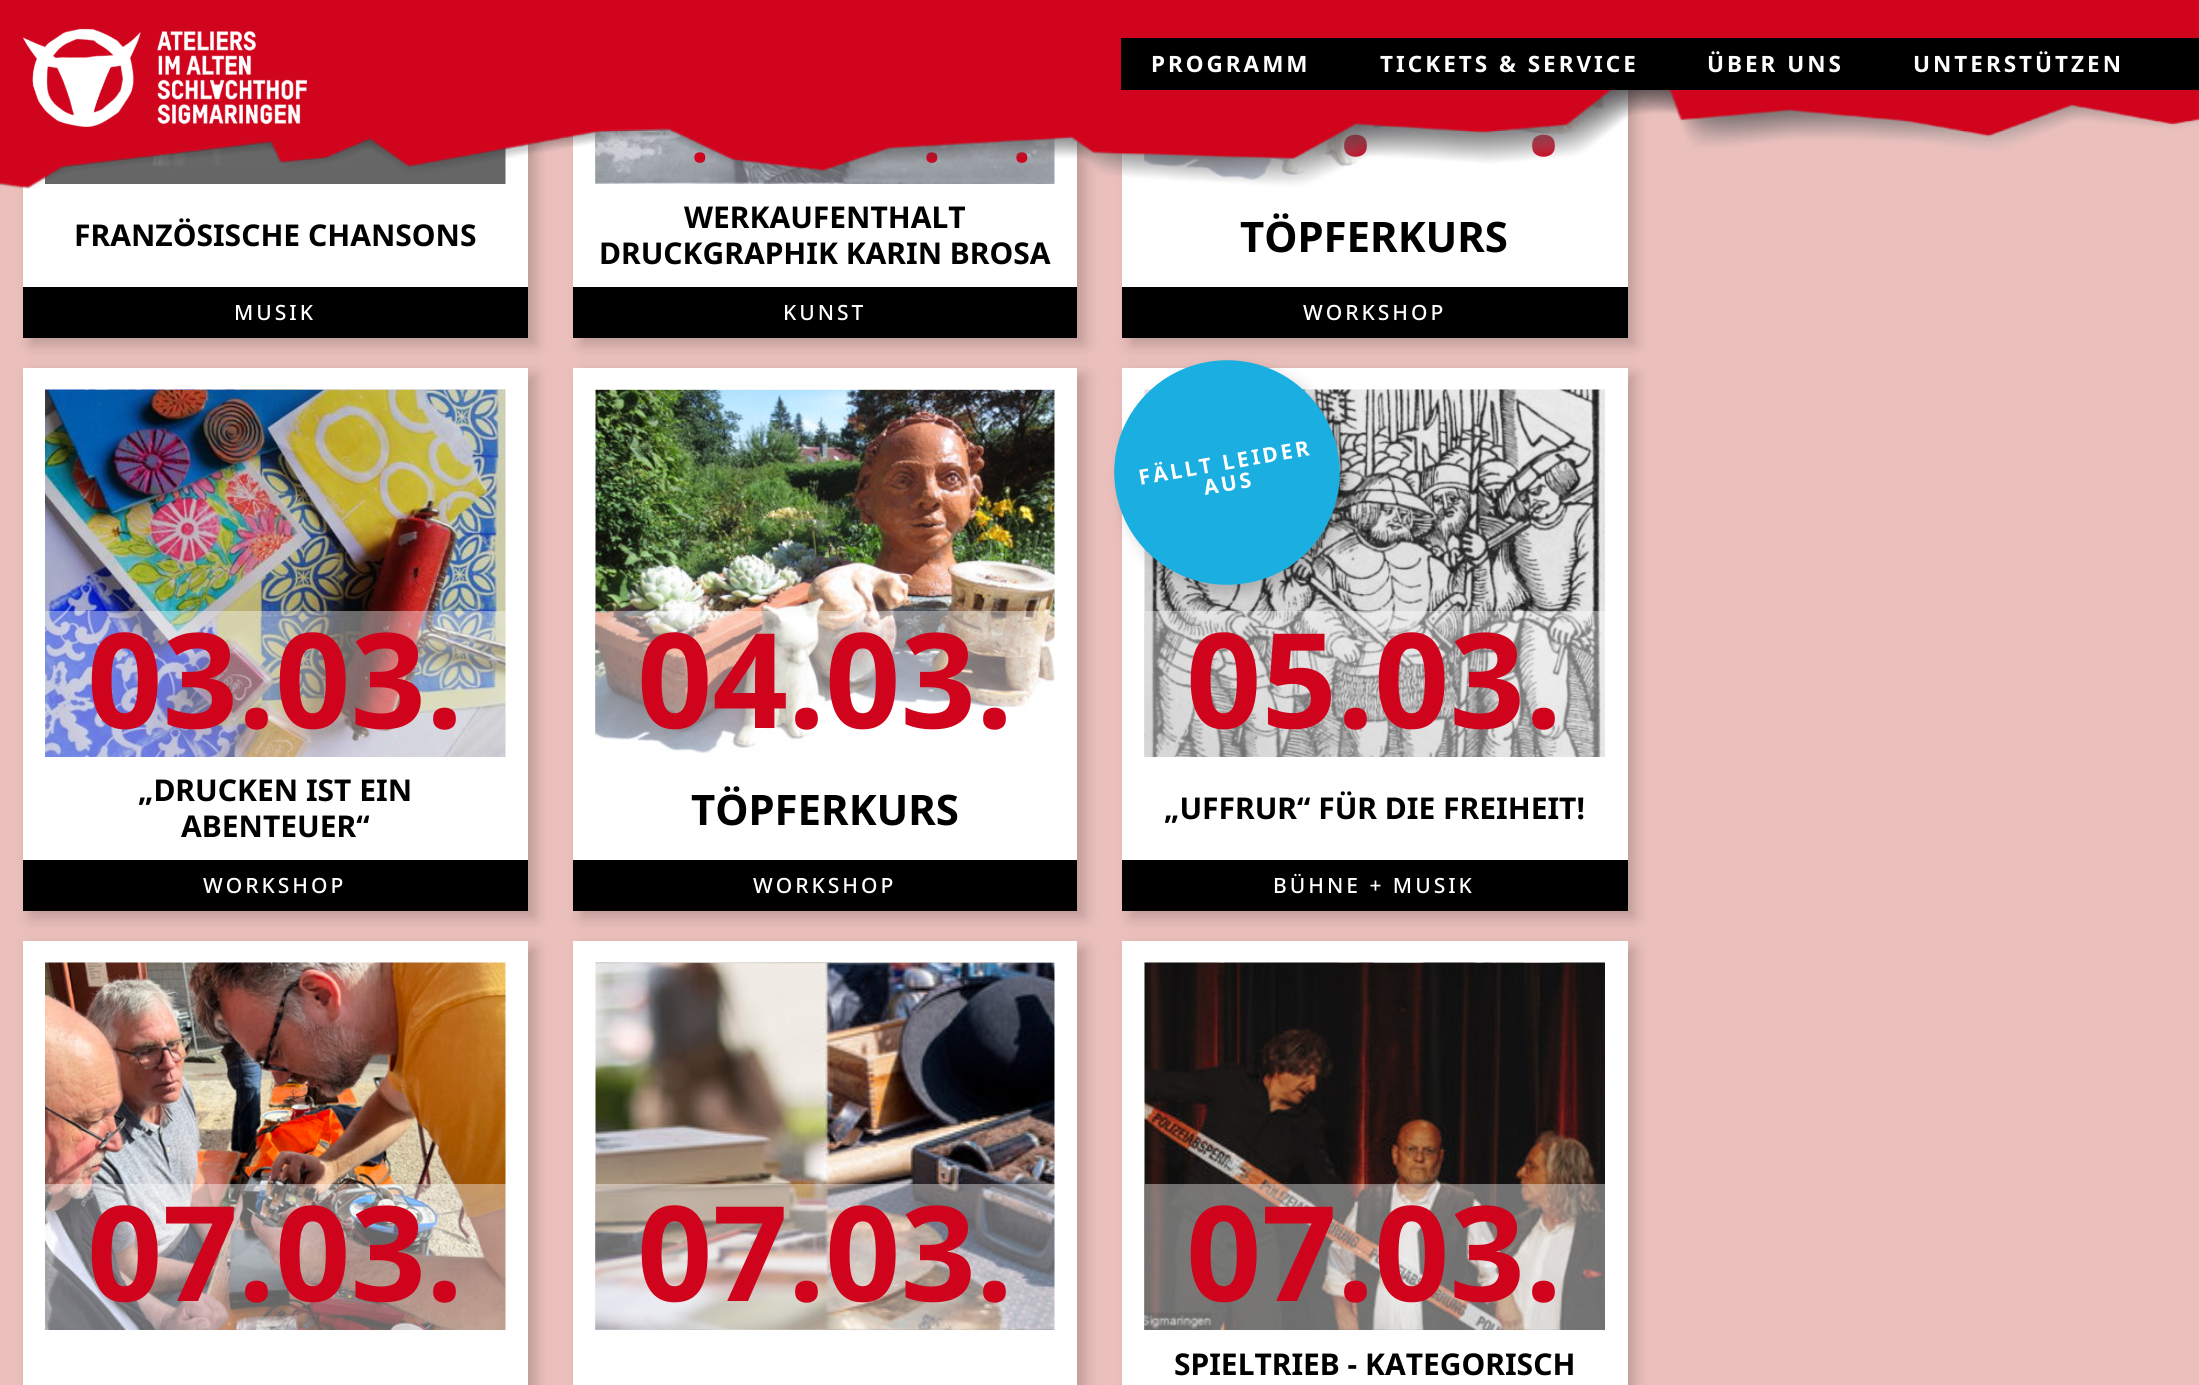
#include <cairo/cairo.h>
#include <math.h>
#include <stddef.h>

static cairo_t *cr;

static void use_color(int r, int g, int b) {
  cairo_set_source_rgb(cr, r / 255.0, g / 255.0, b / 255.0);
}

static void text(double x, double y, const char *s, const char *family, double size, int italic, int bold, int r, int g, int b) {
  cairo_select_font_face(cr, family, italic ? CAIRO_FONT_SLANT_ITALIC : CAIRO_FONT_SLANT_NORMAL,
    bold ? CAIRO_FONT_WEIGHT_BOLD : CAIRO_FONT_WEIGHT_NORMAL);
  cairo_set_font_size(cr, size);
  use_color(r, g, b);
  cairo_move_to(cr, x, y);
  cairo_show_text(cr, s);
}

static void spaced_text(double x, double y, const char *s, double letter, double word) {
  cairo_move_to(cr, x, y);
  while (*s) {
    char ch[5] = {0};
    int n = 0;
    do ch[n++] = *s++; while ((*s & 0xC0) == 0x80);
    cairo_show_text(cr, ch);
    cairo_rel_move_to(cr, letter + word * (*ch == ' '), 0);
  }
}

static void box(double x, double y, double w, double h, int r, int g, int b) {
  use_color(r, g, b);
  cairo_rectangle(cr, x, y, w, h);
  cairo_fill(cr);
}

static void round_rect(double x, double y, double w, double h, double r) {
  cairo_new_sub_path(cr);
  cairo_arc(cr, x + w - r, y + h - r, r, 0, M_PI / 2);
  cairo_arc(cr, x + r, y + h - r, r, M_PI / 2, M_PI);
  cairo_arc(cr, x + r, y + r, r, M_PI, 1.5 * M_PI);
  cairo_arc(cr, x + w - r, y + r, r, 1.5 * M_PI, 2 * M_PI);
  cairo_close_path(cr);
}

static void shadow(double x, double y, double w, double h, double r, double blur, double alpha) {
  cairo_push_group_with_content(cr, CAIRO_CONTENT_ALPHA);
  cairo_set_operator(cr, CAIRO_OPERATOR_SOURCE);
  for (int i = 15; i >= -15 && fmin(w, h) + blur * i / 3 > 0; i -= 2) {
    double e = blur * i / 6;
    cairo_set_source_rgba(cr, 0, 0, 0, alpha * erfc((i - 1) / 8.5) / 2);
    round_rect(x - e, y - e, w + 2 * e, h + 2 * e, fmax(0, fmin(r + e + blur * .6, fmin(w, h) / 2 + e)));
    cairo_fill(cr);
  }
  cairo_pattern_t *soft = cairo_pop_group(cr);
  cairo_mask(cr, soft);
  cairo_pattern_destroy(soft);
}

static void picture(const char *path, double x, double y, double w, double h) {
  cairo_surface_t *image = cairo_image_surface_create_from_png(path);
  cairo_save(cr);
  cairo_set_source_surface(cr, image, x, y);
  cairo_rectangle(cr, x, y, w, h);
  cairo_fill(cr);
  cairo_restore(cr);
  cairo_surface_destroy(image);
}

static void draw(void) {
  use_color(235, 192, 188);
  cairo_paint(cr);
  use_color(0, 0, 0);
  shadow(30, -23, 506, 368, 0, 7.5, 0.2);
  box(23, 143, 505, 144, 255, 255, 255);
  picture("img_03.png", 45, 137, 461, 47);
  cairo_set_source_rgba(cr, 1, 1, 1, 0.4);
  cairo_rectangle(cr, 45, 137, 461, 47);
  cairo_fill(cr);
  box(23, 287, 505, 51, 0, 0, 0);
  use_color(0, 0, 0);
  shadow(581, -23, 504, 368, 0, 7.5, 0.2);
  box(573, 131, 504, 156, 255, 255, 255);
  picture("img_04.png", 595, 127, 460, 57);
  cairo_set_source_rgba(cr, 1, 1, 1, 0.4);
  cairo_rectangle(cr, 596, 127, 459, 57);
  cairo_fill(cr);
  box(573, 287, 504, 51, 0, 0, 0);
  use_color(0, 0, 0);
  shadow(1130, -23, 505, 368, 0, 7.5, 0.2);
  box(1122, 90, 506, 197, 255, 255, 255);
  picture("img_05.png", 1144, 93, 461, 88);
  cairo_set_source_rgba(cr, 1, 1, 1, 0.4);
  cairo_rectangle(cr, 1145, 93, 460, 88);
  cairo_fill(cr);
  box(1122, 287, 506, 51, 0, 0, 0);
  use_color(0, 0, 0);
  shadow(30, 375, 506, 543, 0, 7.5, 0.2);
  box(23, 368, 505, 492, 255, 255, 255);
  picture("img_06.png", 45, 389, 461, 368);
  cairo_set_source_rgba(cr, 1, 1, 1, 0.4);
  cairo_rectangle(cr, 45, 611, 461, 146);
  cairo_fill(cr);
  box(23, 860, 505, 51, 0, 0, 0);
  use_color(0, 0, 0);
  shadow(581, 375, 504, 543, 0, 7.5, 0.2);
  box(573, 368, 504, 492, 255, 255, 255);
  picture("img_07.png", 595, 389, 460, 365);
  cairo_set_source_rgba(cr, 1, 1, 1, 0.4);
  cairo_rectangle(cr, 596, 611, 459, 143);
  cairo_fill(cr);
  box(573, 860, 504, 51, 0, 0, 0);
  use_color(0, 0, 0);
  shadow(1130, 375, 505, 543, 0, 7.5, 0.2);
  box(1122, 368, 506, 492, 255, 255, 255);
  picture("img_08.png", 1144, 389, 461, 368);
  cairo_set_source_rgba(cr, 1, 1, 1, 0.4);
  cairo_rectangle(cr, 1145, 611, 460, 146);
  cairo_fill(cr);
  use_color(0, 0, 0);
  shadow(1122, 368, 225, 225, 112.5, 7.5, 0.2);
  use_color(26, 174, 225);
  cairo_new_path(cr);
  cairo_move_to(cr, 1207, 362);
  cairo_curve_to(cr, 1269, 351, 1327, 392, 1338, 453);
  cairo_curve_to(cr, 1349, 514, 1308, 573, 1247, 583);
  cairo_curve_to(cr, 1185, 594, 1127, 553, 1116, 492);
  cairo_curve_to(cr, 1105, 431, 1146, 373, 1207, 362);
  cairo_close_path(cr);
  cairo_fill(cr);
  box(1122, 860, 506, 51, 0, 0, 0);
  use_color(0, 0, 0);
  shadow(30, 948, 506, 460, 0, 7.5, 0.2);
  box(23, 941, 505, 444, 255, 255, 255);
  picture("img_09.png", 45, 962, 461, 368);
  cairo_set_source_rgba(cr, 1, 1, 1, 0.4);
  cairo_rectangle(cr, 45, 1184, 461, 146);
  cairo_fill(cr);
  use_color(0, 0, 0);
  shadow(581, 948, 504, 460, 0, 7.5, 0.2);
  box(573, 941, 504, 444, 255, 255, 255);
  picture("img_10.png", 595, 962, 460, 368);
  cairo_set_source_rgba(cr, 1, 1, 1, 0.4);
  cairo_rectangle(cr, 596, 1184, 459, 146);
  cairo_fill(cr);
  use_color(0, 0, 0);
  shadow(1130, 948, 505, 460, 0, 7.5, 0.2);
  box(1122, 941, 506, 444, 255, 255, 255);
  picture("img_11.png", 1144, 962, 461, 368);
  cairo_set_source_rgba(cr, 1, 1, 1, 0.4);
  cairo_rectangle(cr, 1145, 1184, 460, 146);
  cairo_fill(cr);
  text(74, 246, "FRANZÖSISCHE CHANSONS", "Noto Sans", 30, 0, 1, 0, 0, 0);
  cairo_select_font_face(cr, "Noto Sans Medium", CAIRO_FONT_SLANT_NORMAL, CAIRO_FONT_WEIGHT_NORMAL);
  cairo_set_font_size(cr, 21);
  use_color(255, 255, 255);
  spaced_text(234, 320, "MUSIK", 3, 0);
  text(691, 162, ".", "Noto Sans", 63, 0, 1, 208, 3, 29);
  text(923, 162, ".", "Noto Sans", 63, 0, 1, 208, 3, 29);
  text(1013, 162, ".", "Noto Sans", 63, 0, 1, 208, 3, 29);
  text(684, 228, "WERKAUFENTHALT", "Noto Sans", 30, 0, 1, 0, 0, 0);
  text(599, 264, "DRUCKGRAPHIK KARIN BROSA", "Noto Sans", 30, 0, 1, 0, 0, 0);
  cairo_select_font_face(cr, "Noto Sans Medium", CAIRO_FONT_SLANT_NORMAL, CAIRO_FONT_WEIGHT_NORMAL);
  cairo_set_font_size(cr, 21);
  use_color(255, 255, 255);
  spaced_text(783, 320, "KUNST", 3, 0);
  text(1337, 155, ".", "Noto Sans", 132, 0, 1, 208, 3, 29);
  text(1525, 155, ".", "Noto Sans", 132, 0, 1, 208, 3, 29);
  picture("img_01.png", 0, 0, 2199, 189);
  box(1121, 38, 1078, 52, 0, 0, 0);
  cairo_set_font_size(cr, 22.5);
  use_color(255, 255, 255);
  spaced_text(1913, 72, "UNTERSTÜTZEN", 3, 0);
  spaced_text(1707, 72, "ÜBER UNS", 3, 0);
  spaced_text(1380, 72, "TICKETS & SERVICE", 3, 0);
  spaced_text(1151, 72, "PROGRAMM", 3, 0);
  picture("img_02.png", 23, 28, 284, 99);
  text(1240, 252, "TÖPFERKURS", "Noto Sans", 42, 0, 1, 0, 0, 0);
  cairo_select_font_face(cr, "Noto Sans Medium", CAIRO_FONT_SLANT_NORMAL, CAIRO_FONT_WEIGHT_NORMAL);
  cairo_set_font_size(cr, 21);
  use_color(255, 255, 255);
  spaced_text(1303, 320, "WORKSHOP", 3, 0);
  text(87, 728, "03.03.", "Noto Sans", 132, 0, 1, 208, 3, 29);
  text(138, 801, "„DRUCKEN IST EIN", "Noto Sans", 30, 0, 1, 0, 0, 0);
  text(181, 837, "ABENTEUER“", "Noto Sans", 30, 0, 1, 0, 0, 0);
  cairo_select_font_face(cr, "Noto Sans Medium", CAIRO_FONT_SLANT_NORMAL, CAIRO_FONT_WEIGHT_NORMAL);
  cairo_set_font_size(cr, 21);
  use_color(255, 255, 255);
  spaced_text(203, 893, "WORKSHOP", 3, 0);
  text(637, 728, "04.03.", "Noto Sans", 132, 0, 1, 208, 3, 29);
  text(691, 825, "TÖPFERKURS", "Noto Sans", 42, 0, 1, 0, 0, 0);
  cairo_select_font_face(cr, "Noto Sans Medium", CAIRO_FONT_SLANT_NORMAL, CAIRO_FONT_WEIGHT_NORMAL);
  cairo_set_font_size(cr, 21);
  use_color(255, 255, 255);
  spaced_text(753, 893, "WORKSHOP", 3, 0);
  cairo_select_font_face(cr, "Noto Sans", CAIRO_FONT_SLANT_NORMAL, CAIRO_FONT_WEIGHT_BOLD);
  cairo_save(cr);
  cairo_translate(cr, 1140, 485);
  cairo_rotate(cr, -10 * M_PI / 180);
  spaced_text(0, 0, "FÄLLT LEIDER", 3, 0);
  cairo_restore(cr);
  cairo_save(cr);
  cairo_translate(cr, 1205, 495);
  cairo_rotate(cr, -10 * M_PI / 180);
  spaced_text(0, 0, "AUS", 3, 0);
  cairo_restore(cr);
  text(1186, 728, "05.03.", "Noto Sans", 132, 0, 1, 208, 3, 29);
  text(1164, 819, "„UFFRUR“ FÜR DIE FREIHEIT!", "Noto Sans", 30, 0, 1, 0, 0, 0);
  cairo_select_font_face(cr, "Noto Sans Medium", CAIRO_FONT_SLANT_NORMAL, CAIRO_FONT_WEIGHT_NORMAL);
  cairo_set_font_size(cr, 21);
  use_color(255, 255, 255);
  spaced_text(1273, 893, "BÜHNE + MUSIK", 3, 0);
  text(87, 1301, "07.03.", "Noto Sans", 132, 0, 1, 208, 3, 29);
  text(637, 1301, "07.03.", "Noto Sans", 132, 0, 1, 208, 3, 29);
  text(1186, 1301, "07.03.", "Noto Sans", 132, 0, 1, 208, 3, 29);
  text(1174, 1375, "SPIELTRIEB - KATEGORISCH", "Noto Sans", 30, 0, 1, 0, 0, 0);
}

int main(void) {
  cairo_surface_t *surface = cairo_image_surface_create(CAIRO_FORMAT_RGB24, 2199, 1385);
  cr = cairo_create(surface);
  cairo_font_options_t *options = cairo_font_options_create();
  cairo_font_options_set_hint_metrics(options, CAIRO_HINT_METRICS_OFF);
  cairo_font_options_set_hint_style(options, CAIRO_HINT_STYLE_NONE);
  cairo_set_font_options(cr, options);
  cairo_set_miter_limit(cr, 4);
  draw();
  cairo_surface_write_to_png(surface, "out.png");
  cairo_font_options_destroy(options);
  cairo_destroy(cr);
  cairo_surface_destroy(surface);
  return 0;
}
